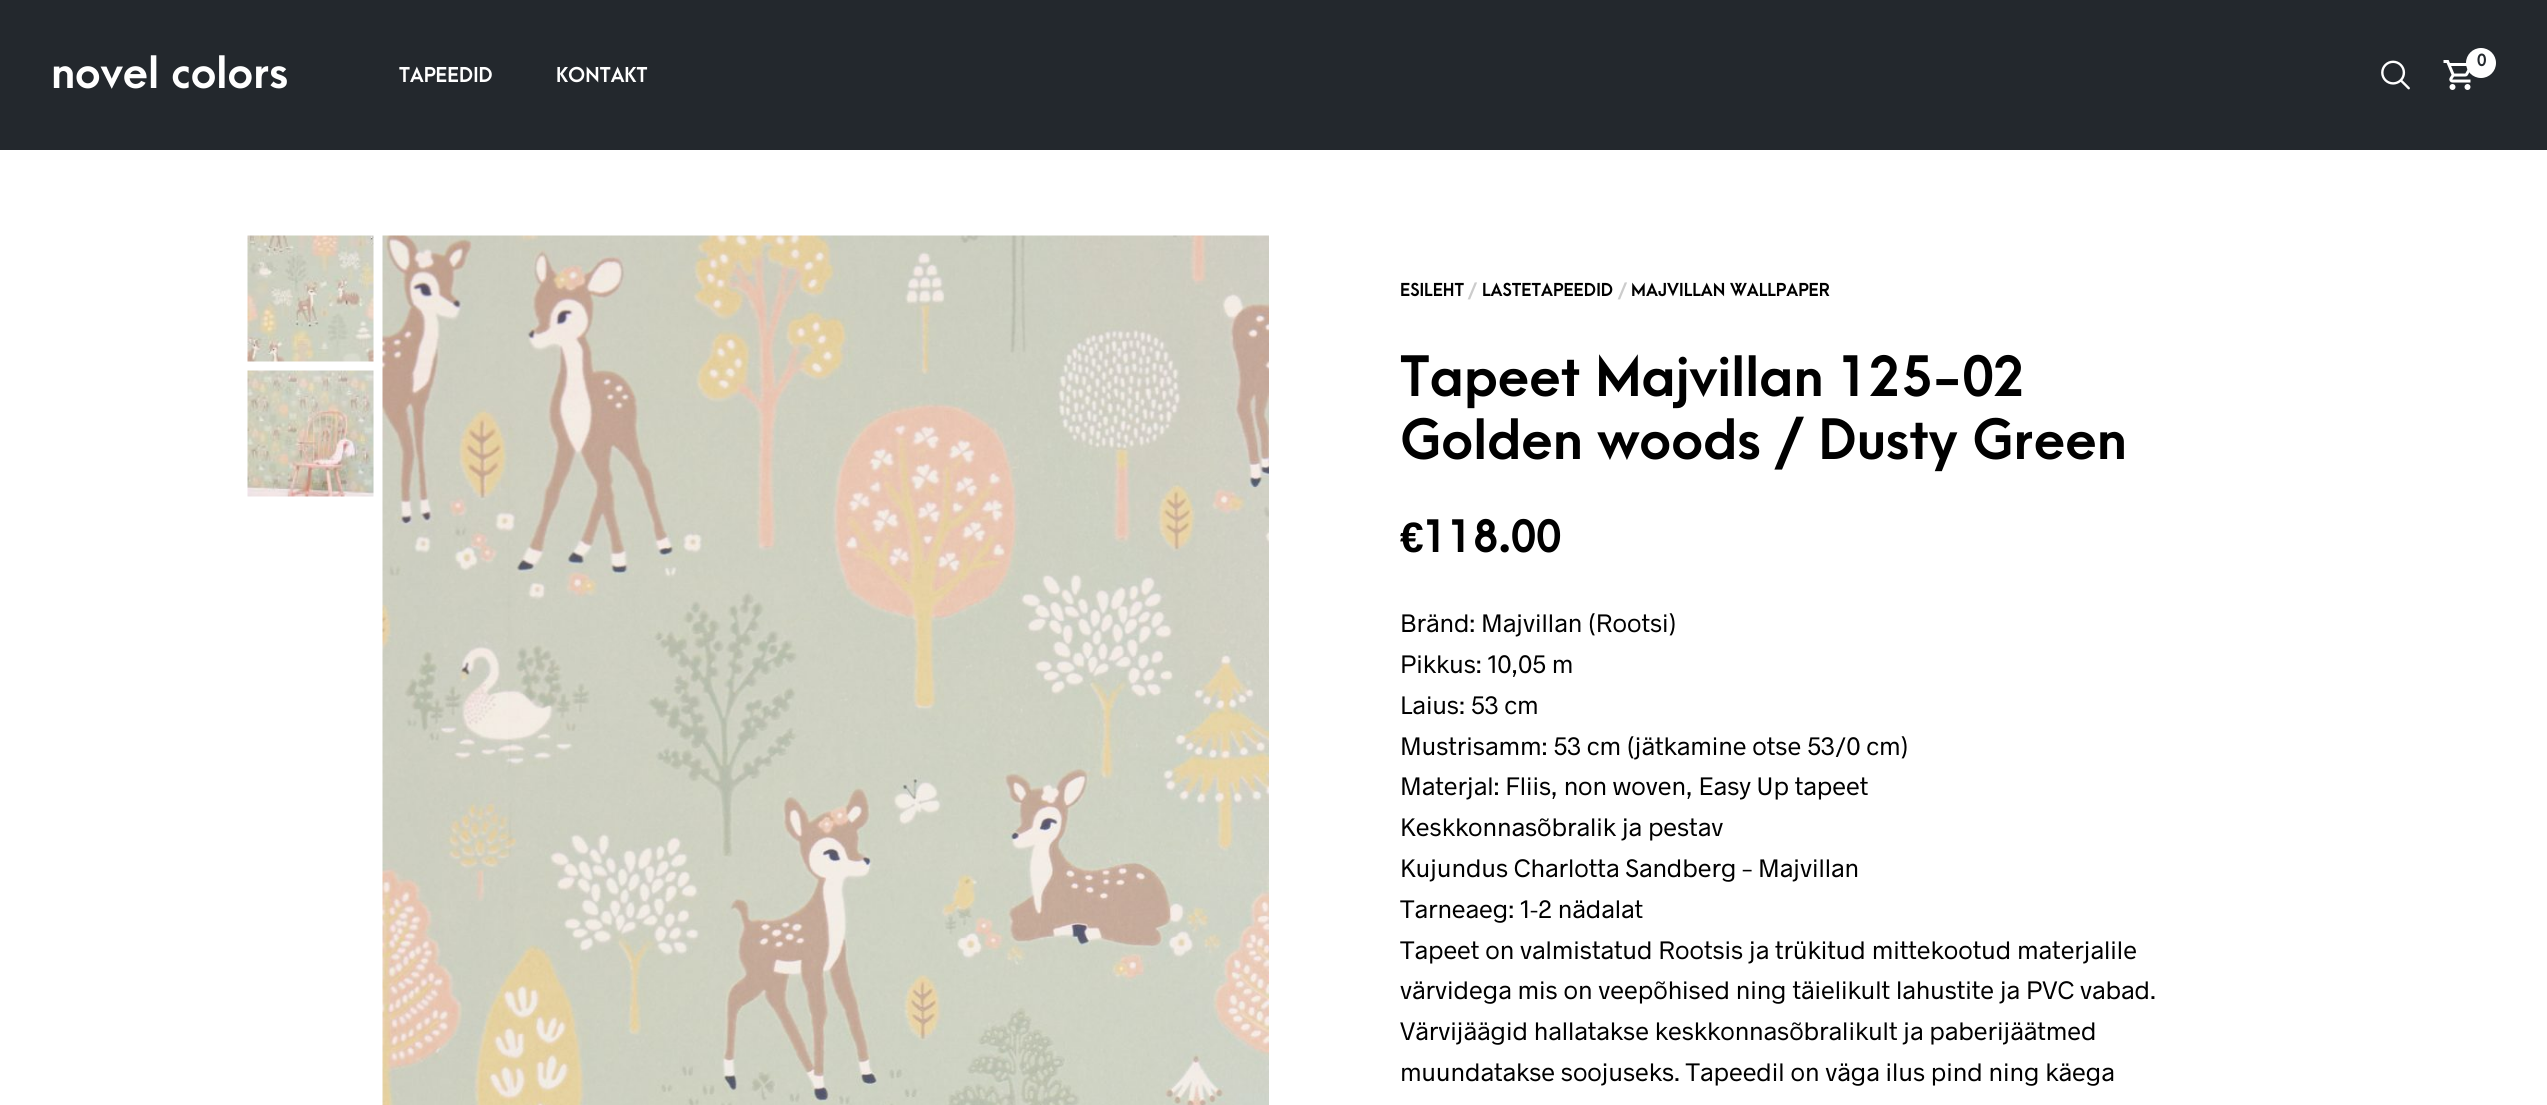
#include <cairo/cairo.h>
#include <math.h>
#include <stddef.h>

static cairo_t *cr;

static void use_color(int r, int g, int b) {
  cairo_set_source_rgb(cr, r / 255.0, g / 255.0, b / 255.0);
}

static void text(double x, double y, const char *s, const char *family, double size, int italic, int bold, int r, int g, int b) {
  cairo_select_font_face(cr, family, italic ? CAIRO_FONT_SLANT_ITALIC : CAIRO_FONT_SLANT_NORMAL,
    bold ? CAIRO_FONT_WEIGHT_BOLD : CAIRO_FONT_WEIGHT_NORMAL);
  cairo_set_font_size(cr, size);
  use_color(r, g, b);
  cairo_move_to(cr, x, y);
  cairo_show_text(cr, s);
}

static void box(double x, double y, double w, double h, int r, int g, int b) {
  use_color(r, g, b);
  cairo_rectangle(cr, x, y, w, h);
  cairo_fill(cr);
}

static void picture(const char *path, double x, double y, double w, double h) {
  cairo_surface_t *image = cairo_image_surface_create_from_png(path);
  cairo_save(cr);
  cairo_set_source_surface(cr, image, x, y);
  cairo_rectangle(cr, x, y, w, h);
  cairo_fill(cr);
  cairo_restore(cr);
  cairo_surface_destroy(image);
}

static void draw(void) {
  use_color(255, 255, 255);
  cairo_paint(cr);
  box(0, 0, 2547, 150, 35, 40, 45);
  picture("img_01.png", 2381, 60, 29, 30);
  picture("img_02.png", 2443, 60, 28, 30);
  use_color(255, 255, 255);
  cairo_arc(cr, 2481, 63, 15, 0, 2 * M_PI);
  cairo_fill(cr);
  picture("img_03.png", 247, 235, 127, 127);
  picture("img_04.png", 247, 370, 127, 127);
  picture("img_05.png", 382, 235, 887, 870);
  text(51, 88, "novel colors", "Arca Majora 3", 42.5, 0, 1, 255, 255, 255);
  text(399, 82, "TAPEEDID", "Arca Majora 3", 19.5, 0, 1, 255, 255, 255);
  text(556, 82, "KONTAKT", "Arca Majora 3", 19.5, 0, 1, 255, 255, 255);
  text(2477, 66, "0", "Arca Majora 3", 16, 0, 1, 35, 40, 45);
  text(1400, 296, "ESILEHT", "Arca Majora 3", 17, 0, 1, 0, 0, 0);
  text(1468, 296, "/", "Arca Majora 3", 17, 0, 1, 204, 204, 204);
  text(1482, 296, "LASTETAPEEDID", "Arca Majora 3", 17, 0, 1, 0, 0, 0);
  text(1618, 296, "/", "Arca Majora 3", 17, 0, 1, 204, 204, 204);
  text(1631, 296, "MAJVILLAN WALLPAPER", "Arca Majora 3", 17, 0, 1, 0, 0, 0);
  text(1400, 396, "Tapeet Majvillan 125-02", "Arca Majora 3", 52.9, 0, 1, 0, 0, 0);
  text(1400, 459, "Golden woods / Dusty Green", "Arca Majora 3", 52.9, 0, 1, 0, 0, 0);
  text(1400, 552, "€", "Liberation Sans", 42.5, 0, 1, 0, 0, 0);
  text(1423, 552, "118.00", "Arca Majora 3", 42.5, 0, 1, 0, 0, 0);
  text(1400, 632, "Bränd: Majvillan (Rootsi)", "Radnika", 25.5, 0, 0, 0, 0, 0);
  text(1400, 673, "Pikkus: 10,05 m", "Radnika", 25.5, 0, 0, 0, 0, 0);
  text(1400, 714, "Laius: 53 cm", "Radnika", 25.5, 0, 0, 0, 0, 0);
  text(1400, 755, "Mustrisamm: 53 cm (jätkamine otse 53/0 cm)", "Radnika", 25.5, 0, 0, 0, 0, 0);
  text(1400, 795, "Materjal: Fliis, non woven, Easy Up tapeet", "Radnika", 25.5, 0, 0, 0, 0, 0);
  text(1400, 836, "Keskkonnasõbralik ja pestav", "Radnika", 25.5, 0, 0, 0, 0, 0);
  text(1400, 877, "Kujundus Charlotta Sandberg – Majvillan", "Radnika", 25.5, 0, 0, 0, 0, 0);
  text(1400, 918, "Tarneaeg: 1-2 nädalat", "Radnika", 25.5, 0, 0, 0, 0, 0);
  text(1400, 959, "Tapeet on valmistatud Rootsis ja trükitud mittekootud materjalile", "Radnika", 25.5, 0, 0, 0, 0, 0);
  text(1400, 999, "värvidega mis on veepõhised ning täielikult lahustite ja PVC vabad.", "Radnika", 25.5, 0, 0, 0, 0, 0);
  text(1400, 1040, "Värvijäägid hallatakse keskkonnasõbralikult ja paberijäätmed", "Radnika", 25.5, 0, 0, 0, 0, 0);
  text(1400, 1081, "muundatakse soojuseks. Tapeedil on väga ilus pind ning käega", "Radnika", 25.5, 0, 0, 0, 0, 0);
}

int main(void) {
  cairo_surface_t *surface = cairo_image_surface_create(CAIRO_FORMAT_RGB24, 2547, 1105);
  cr = cairo_create(surface);
  cairo_font_options_t *options = cairo_font_options_create();
  cairo_font_options_set_hint_metrics(options, CAIRO_HINT_METRICS_OFF);
  cairo_font_options_set_hint_style(options, CAIRO_HINT_STYLE_NONE);
  cairo_set_font_options(cr, options);
  cairo_set_miter_limit(cr, 4);
  draw();
  cairo_surface_write_to_png(surface, "out.png");
  cairo_font_options_destroy(options);
  cairo_destroy(cr);
  cairo_surface_destroy(surface);
  return 0;
}
